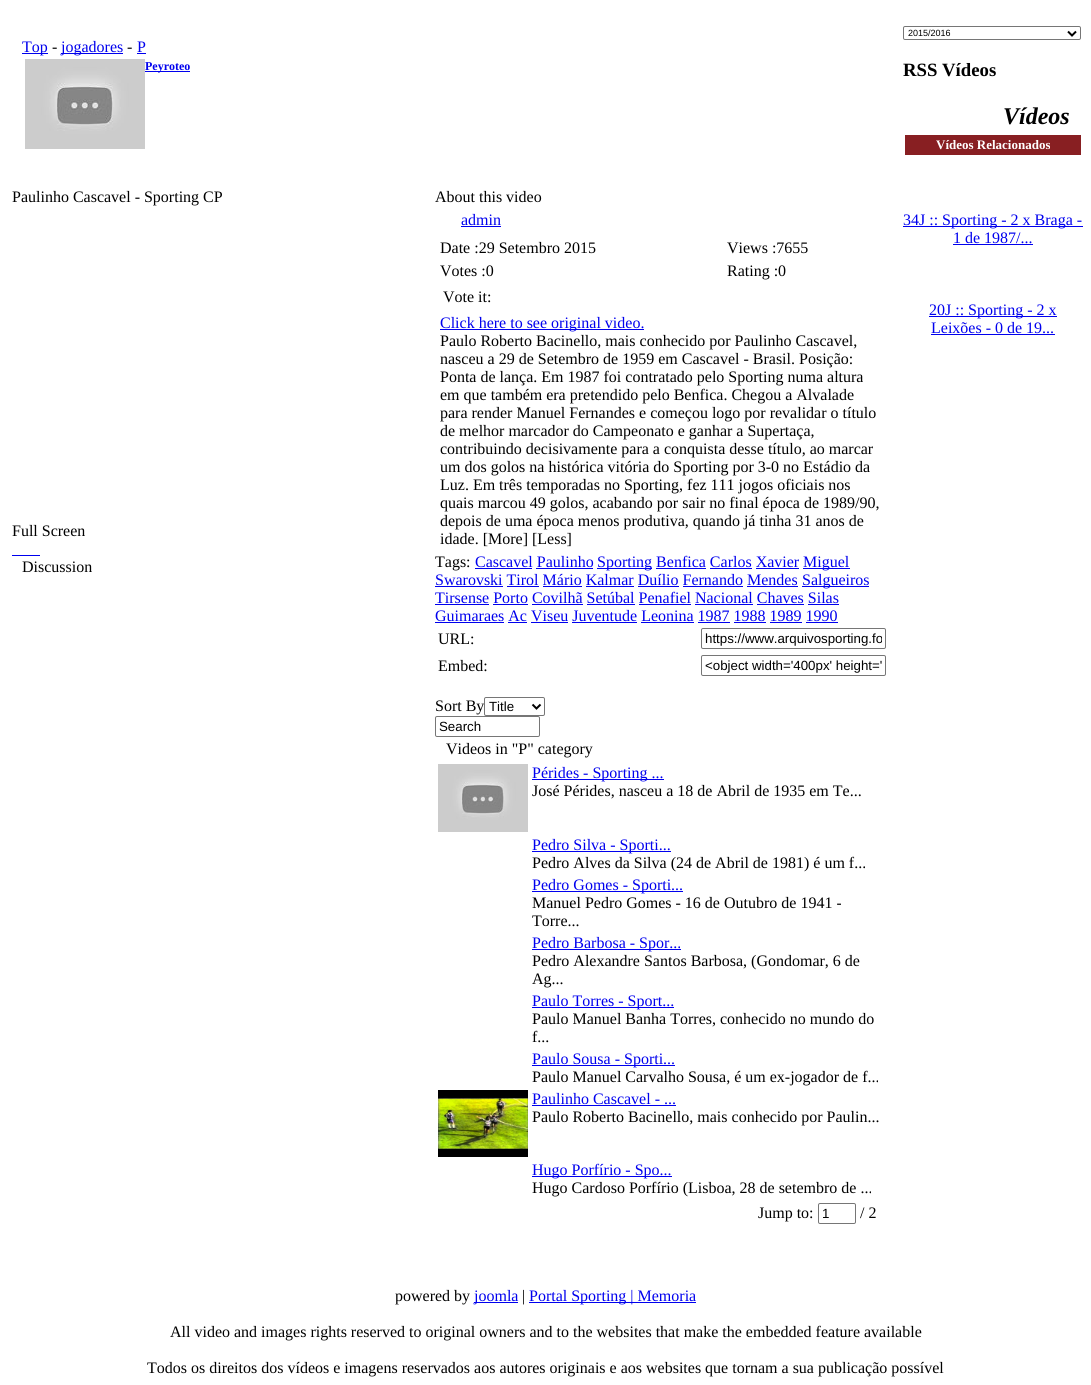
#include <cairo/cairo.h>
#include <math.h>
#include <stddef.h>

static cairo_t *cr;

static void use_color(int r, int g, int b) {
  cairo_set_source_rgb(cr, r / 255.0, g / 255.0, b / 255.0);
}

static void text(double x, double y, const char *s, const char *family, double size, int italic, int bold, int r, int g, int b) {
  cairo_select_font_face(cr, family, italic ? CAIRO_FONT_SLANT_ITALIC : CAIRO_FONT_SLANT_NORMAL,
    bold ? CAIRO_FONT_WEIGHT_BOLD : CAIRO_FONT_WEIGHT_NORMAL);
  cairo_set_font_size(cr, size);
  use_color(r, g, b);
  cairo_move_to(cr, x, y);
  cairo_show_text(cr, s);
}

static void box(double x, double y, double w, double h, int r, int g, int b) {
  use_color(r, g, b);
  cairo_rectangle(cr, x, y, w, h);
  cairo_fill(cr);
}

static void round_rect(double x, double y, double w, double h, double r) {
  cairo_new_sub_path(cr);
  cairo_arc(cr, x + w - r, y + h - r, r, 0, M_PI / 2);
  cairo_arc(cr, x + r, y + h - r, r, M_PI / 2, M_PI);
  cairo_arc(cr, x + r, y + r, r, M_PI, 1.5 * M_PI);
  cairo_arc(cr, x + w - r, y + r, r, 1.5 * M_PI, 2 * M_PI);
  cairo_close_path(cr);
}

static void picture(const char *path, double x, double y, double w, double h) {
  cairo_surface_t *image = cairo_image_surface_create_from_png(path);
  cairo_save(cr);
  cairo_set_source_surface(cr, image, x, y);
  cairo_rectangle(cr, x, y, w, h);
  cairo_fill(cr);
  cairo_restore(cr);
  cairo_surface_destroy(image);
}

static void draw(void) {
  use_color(255, 255, 255);
  cairo_paint(cr);
  box(22, 53, 26, 1, 0, 0, 238);
  box(61, 53, 62, 1, 0, 0, 238);
  box(137, 53, 9, 1, 0, 0, 238);
  picture("img_01.png", 25, 59, 120, 90);
  box(145, 71, 45, 1, 0, 0, 238);
  box(12, 555, 28, 1, 0, 0, 238);
  box(461, 226, 40, 1, 0, 0, 238);
  box(440, 329, 204, 1, 0, 0, 238);
  box(475, 568, 57, 1, 0, 0, 238);
  box(597, 568, 55, 1, 0, 0, 238);
  box(803, 568, 47, 1, 0, 0, 238);
  box(536, 568, 57, 1, 0, 0, 238);
  box(656, 568, 50, 1, 0, 0, 238);
  box(710, 568, 42, 1, 0, 0, 238);
  box(756, 568, 43, 1, 0, 0, 238);
  box(435, 586, 68, 1, 0, 0, 238);
  box(802, 586, 67, 1, 0, 0, 238);
  box(507, 586, 32, 1, 0, 0, 238);
  box(543, 586, 39, 1, 0, 0, 238);
  box(586, 586, 48, 1, 0, 0, 238);
  box(638, 586, 41, 1, 0, 0, 238);
  box(683, 586, 60, 1, 0, 0, 238);
  box(747, 586, 51, 1, 0, 0, 238);
  box(435, 604, 54, 1, 0, 0, 238);
  box(493, 604, 35, 1, 0, 0, 238);
  box(532, 604, 51, 1, 0, 0, 238);
  box(587, 604, 48, 1, 0, 0, 238);
  box(639, 604, 52, 1, 0, 0, 238);
  box(695, 604, 58, 1, 0, 0, 238);
  box(757, 604, 47, 1, 0, 0, 238);
  box(808, 604, 31, 1, 0, 0, 238);
  box(435, 622, 69, 1, 0, 0, 238);
  box(508, 622, 19, 1, 0, 0, 238);
  box(531, 622, 37, 1, 0, 0, 238);
  box(572, 622, 65, 1, 0, 0, 238);
  box(641, 622, 53, 1, 0, 0, 238);
  box(698, 622, 32, 1, 0, 0, 238);
  box(734, 622, 32, 1, 0, 0, 238);
  box(770, 622, 32, 1, 0, 0, 238);
  box(806, 622, 32, 1, 0, 0, 238);
  round_rect(701.5, 628.5, 184, 20, 1.5);
  use_color(118, 118, 118);
  cairo_set_line_width(cr, 1);
  cairo_stroke(cr);
  round_rect(701.5, 655.5, 184, 20, 1.5);
  cairo_stroke(cr);
  round_rect(435.5, 716.5, 104, 20, 1.5);
  cairo_stroke(cr);
  picture("img_02.png", 438, 764, 90, 68);
  box(532, 779, 132, 1, 0, 0, 238);
  box(532, 851, 139, 1, 0, 0, 238);
  box(532, 891, 151, 1, 0, 0, 238);
  box(532, 949, 149, 1, 0, 0, 238);
  box(532, 1007, 142, 1, 0, 0, 238);
  box(532, 1065, 143, 1, 0, 0, 238);
  picture("img_03.png", 438, 1090, 90, 67);
  box(532, 1105, 144, 1, 0, 0, 238);
  box(532, 1176, 140, 1, 0, 0, 238);
  round_rect(818.5, 1203.5, 37, 20, 1.5);
  use_color(118, 118, 118);
  cairo_stroke(cr);
  round_rect(903.5, 26.5, 177, 13, 1.5);
  cairo_stroke(cr);
  cairo_new_path(cr);
  cairo_move_to(cr, 1068, 31.5);
  cairo_line_to(cr, 1072, 35.5);
  cairo_line_to(cr, 1076, 31.5);
  use_color(0, 0, 0);
  cairo_set_line_width(cr, 2);
  cairo_stroke(cr);
  box(905, 135, 176, 20, 136, 31, 34);
  box(903, 226, 180, 1, 0, 0, 238);
  box(953, 244, 80, 1, 0, 0, 238);
  box(929, 316, 128, 1, 0, 0, 238);
  box(931, 334, 124, 1, 0, 0, 238);
  box(474, 1302, 44, 1, 0, 0, 238);
  box(529, 1302, 167, 1, 0, 0, 238);
  text(22, 52, "Top", "Liberation Serif", 16, 0, 0, 0, 0, 238);
  text(52, 52, "-", "Liberation Serif", 16, 0, 0, 0, 0, 0);
  text(61, 52, "jogadores", "Liberation Serif", 16, 0, 0, 0, 0, 238);
  text(127, 52, "-", "Liberation Serif", 16, 0, 0, 0, 0, 0);
  text(137, 52, "P", "Liberation Serif", 16, 0, 0, 0, 0, 238);
  text(145, 70, "Peyroteo", "Liberation Serif", 12, 0, 1, 0, 0, 238);
  text(12, 202, "Paulinho Cascavel - Sporting CP", "Liberation Serif", 16, 0, 0, 0, 0, 0);
  text(12, 536, "Full Screen", "Liberation Serif", 16, 0, 0, 0, 0, 0);
  text(22, 572, "Discussion", "Liberation Serif", 16, 0, 0, 0, 0, 0);
  text(435, 202, "About this video", "Liberation Serif", 16, 0, 0, 0, 0, 0);
  text(461, 225, "admin", "Liberation Serif", 16, 0, 0, 0, 0, 238);
  text(440, 253, "Date :29 Setembro 2015", "Liberation Serif", 16, 0, 0, 0, 0, 0);
  text(727, 253, "Views :7655", "Liberation Serif", 16, 0, 0, 0, 0, 0);
  text(440, 276, "Votes :0", "Liberation Serif", 16, 0, 0, 0, 0, 0);
  text(727, 276, "Rating :0", "Liberation Serif", 16, 0, 0, 0, 0, 0);
  text(443, 302, "Vote it:", "Liberation Serif", 16, 0, 0, 0, 0, 0);
  text(440, 328, "Click here to see original video.", "Liberation Serif", 16, 0, 0, 0, 0, 238);
  text(440, 346, "Paulo Roberto Bacinello, mais conhecido por Paulinho Cascavel,", "Liberation Serif", 16, 0, 0, 0, 0, 0);
  text(440, 364, "nasceu a 29 de Setembro de 1959 em Cascavel - Brasil. Posição:", "Liberation Serif", 16, 0, 0, 0, 0, 0);
  text(440, 382, "Ponta de lança. Em 1987 foi contratado pelo Sporting numa altura", "Liberation Serif", 16, 0, 0, 0, 0, 0);
  text(440, 400, "em que também era pretendido pelo Benfica. Chegou a Alvalade", "Liberation Serif", 16, 0, 0, 0, 0, 0);
  text(440, 418, "para render Manuel Fernandes e começou logo por revalidar o título", "Liberation Serif", 16, 0, 0, 0, 0, 0);
  text(440, 436, "de melhor marcador do Campeonato e ganhar a Supertaça,", "Liberation Serif", 16, 0, 0, 0, 0, 0);
  text(440, 454, "contribuindo decisivamente para a conquista desse título, ao marcar", "Liberation Serif", 16, 0, 0, 0, 0, 0);
  text(440, 472, "um dos golos na histórica vitória do Sporting por 3-0 no Estádio da", "Liberation Serif", 16, 0, 0, 0, 0, 0);
  text(440, 490, "Luz. Em três temporadas no Sporting, fez 111 jogos oficiais nos", "Liberation Serif", 16, 0, 0, 0, 0, 0);
  text(440, 508, "quais marcou 49 golos, acabando por sair no final época de 1989/90,", "Liberation Serif", 16, 0, 0, 0, 0, 0);
  text(440, 526, "depois de uma época menos produtiva, quando já tinha 31 anos de", "Liberation Serif", 16, 0, 0, 0, 0, 0);
  text(440, 544, "idade. [More] [Less]", "Liberation Serif", 16, 0, 0, 0, 0, 0);
  text(435, 567, "Tags:", "Liberation Serif", 16, 0, 0, 0, 0, 0);
  text(475, 567, "Cascavel Paulinho", "Liberation Serif", 16, 0, 0, 0, 0, 238);
  text(597, 567, "Sporting Benfica Carlos Xavier", "Liberation Serif", 16, 0, 0, 0, 0, 238);
  text(803, 567, "Miguel", "Liberation Serif", 16, 0, 0, 0, 0, 238);
  text(435, 585, "Swarovski Tirol Mário Kalmar Duílio Fernando Mendes", "Liberation Serif", 16, 0, 0, 0, 0, 238);
  text(802, 585, "Salgueiros", "Liberation Serif", 16, 0, 0, 0, 0, 238);
  text(435, 603, "Tirsense Porto Covilhã Setúbal Penafiel Nacional Chaves Silas", "Liberation Serif", 16, 0, 0, 0, 0, 238);
  text(435, 621, "Guimaraes Ac Viseu Juventude Leonina 1987 1988 1989 1990", "Liberation Serif", 16, 0, 0, 0, 0, 238);
  text(438, 644, "URL:", "Liberation Serif", 16, 0, 0, 0, 0, 0);
  cairo_save(cr);
  cairo_rectangle(cr, 705, 631, 177, 15);
  cairo_clip(cr);
  text(705, 643, "https://www.arquivosporting.fo", "Liberation Sans", 13.3, 0, 0, 0, 0, 0);
  cairo_restore(cr);
  text(438, 671, "Embed:", "Liberation Serif", 16, 0, 0, 0, 0, 0);
  text(705, 670, "<object width='400px' height='", "Liberation Sans", 13.3, 0, 0, 0, 0, 0);
  text(435, 711, "Sort By", "Liberation Serif", 16, 0, 0, 0, 0, 0);
  use_color(255, 255, 255);
  round_rect(484.5, 697.5, 60, 18, 1.5);
  cairo_fill_preserve(cr);
  use_color(118, 118, 118);
  cairo_set_line_width(cr, 1);
  cairo_stroke(cr);
  cairo_new_path(cr);
  cairo_move_to(cr, 532.5, 704.5);
  cairo_line_to(cr, 536.5, 708.5);
  cairo_line_to(cr, 540.5, 704.5);
  use_color(0, 0, 0);
  cairo_set_line_width(cr, 2);
  cairo_stroke(cr);
  text(489, 711, "Title", "Liberation Sans", 13.3, 0, 0, 0, 0, 0);
  text(439, 731, "Search", "Liberation Sans", 13.3, 0, 0, 0, 0, 0);
  text(446, 754, "Videos in \"P\" category", "Liberation Serif", 16, 0, 0, 0, 0, 0);
  text(532, 778, "Pérides - Sporting ...", "Liberation Serif", 16, 0, 0, 0, 0, 238);
  text(532, 796, "José Pérides, nasceu a 18 de Abril de 1935 em Te...", "Liberation Serif", 16, 0, 0, 0, 0, 0);
  text(532, 850, "Pedro Silva - Sporti...", "Liberation Serif", 16, 0, 0, 0, 0, 238);
  text(532, 868, "Pedro Alves da Silva (24 de Abril de 1981) é um f...", "Liberation Serif", 16, 0, 0, 0, 0, 0);
  text(532, 890, "Pedro Gomes - Sporti...", "Liberation Serif", 16, 0, 0, 0, 0, 238);
  text(532, 908, "Manuel Pedro Gomes - 16 de Outubro de 1941 -", "Liberation Serif", 16, 0, 0, 0, 0, 0);
  text(532, 926, "Torre...", "Liberation Serif", 16, 0, 0, 0, 0, 0);
  text(532, 948, "Pedro Barbosa - Spor...", "Liberation Serif", 16, 0, 0, 0, 0, 238);
  text(532, 966, "Pedro Alexandre Santos Barbosa, (Gondomar, 6 de", "Liberation Serif", 16, 0, 0, 0, 0, 0);
  text(532, 984, "Ag...", "Liberation Serif", 16, 0, 0, 0, 0, 0);
  text(532, 1006, "Paulo Torres - Sport...", "Liberation Serif", 16, 0, 0, 0, 0, 238);
  text(532, 1024, "Paulo Manuel Banha Torres, conhecido no mundo do", "Liberation Serif", 16, 0, 0, 0, 0, 0);
  text(532, 1042, "f...", "Liberation Serif", 16, 0, 0, 0, 0, 0);
  text(532, 1064, "Paulo Sousa - Sporti...", "Liberation Serif", 16, 0, 0, 0, 0, 238);
  text(532, 1082, "Paulo Manuel Carvalho Sousa, é um ex-jogador de f...", "Liberation Serif", 16, 0, 0, 0, 0, 0);
  text(532, 1104, "Paulinho Cascavel - ...", "Liberation Serif", 16, 0, 0, 0, 0, 238);
  text(532, 1122, "Paulo Roberto Bacinello, mais conhecido por Paulin...", "Liberation Serif", 16, 0, 0, 0, 0, 0);
  text(532, 1175, "Hugo Porfírio - Spo...", "Liberation Serif", 16, 0, 0, 0, 0, 238);
  text(532, 1193, "Hugo Cardoso Porfírio (Lisboa, 28 de setembro de ...", "Liberation Serif", 16, 0, 0, 0, 0, 0);
  text(758, 1218, "Jump to:", "Liberation Serif", 16, 0, 0, 0, 0, 0);
  text(822, 1218, "1", "Liberation Sans", 13.3, 0, 0, 0, 0, 0);
  text(860, 1218, "/ 2", "Liberation Serif", 16, 0, 0, 0, 0, 0);
  text(908, 36, "2015/2016", "Liberation Sans", 9, 0, 0, 0, 0, 0);
  text(903, 76, "RSS Vídeos", "Liberation Serif", 18.75, 0, 1, 0, 0, 0);
  text(1003, 124, "Vídeos", "Liberation Serif", 24, 1, 1, 0, 0, 0);
  text(936, 149, "Vídeos Relacionados", "Liberation Serif", 13, 0, 1, 255, 255, 255);
  text(903, 225, "34J :: Sporting - 2 x Braga -", "Liberation Serif", 16, 0, 0, 0, 0, 238);
  text(953, 243, "1 de 1987/...", "Liberation Serif", 16, 0, 0, 0, 0, 238);
  text(929, 315, "20J :: Sporting - 2 x", "Liberation Serif", 16, 0, 0, 0, 0, 238);
  text(931, 333, "Leixões - 0 de 19...", "Liberation Serif", 16, 0, 0, 0, 0, 238);
  text(395, 1301, "powered by", "Liberation Serif", 16, 0, 0, 0, 0, 0);
  text(474, 1301, "joomla", "Liberation Serif", 16, 0, 0, 0, 0, 238);
  text(522, 1301, "|", "Liberation Serif", 16, 0, 0, 0, 0, 0);
  text(529, 1301, "Portal Sporting | Memoria", "Liberation Serif", 16, 0, 0, 0, 0, 238);
  text(170, 1337, "All video and images rights reserved to original owners and to the websites that make the embedded feature available", "Liberation Serif", 16, 0, 0, 0, 0, 0);
  text(147, 1373, "Todos os direitos dos vídeos e imagens reservados aos autores originais e aos websites que tornam a sua publicação possível", "Liberation Serif", 16, 0, 0, 0, 0, 0);
}

int main(void) {
  cairo_surface_t *surface = cairo_image_surface_create(CAIRO_FORMAT_RGB24, 1091, 1385);
  cr = cairo_create(surface);
  cairo_font_options_t *options = cairo_font_options_create();
  cairo_font_options_set_hint_metrics(options, CAIRO_HINT_METRICS_OFF);
  cairo_font_options_set_hint_style(options, CAIRO_HINT_STYLE_NONE);
  cairo_set_font_options(cr, options);
  cairo_set_miter_limit(cr, 4);
  draw();
  cairo_surface_write_to_png(surface, "out.png");
  cairo_font_options_destroy(options);
  cairo_destroy(cr);
  cairo_surface_destroy(surface);
  return 0;
}
